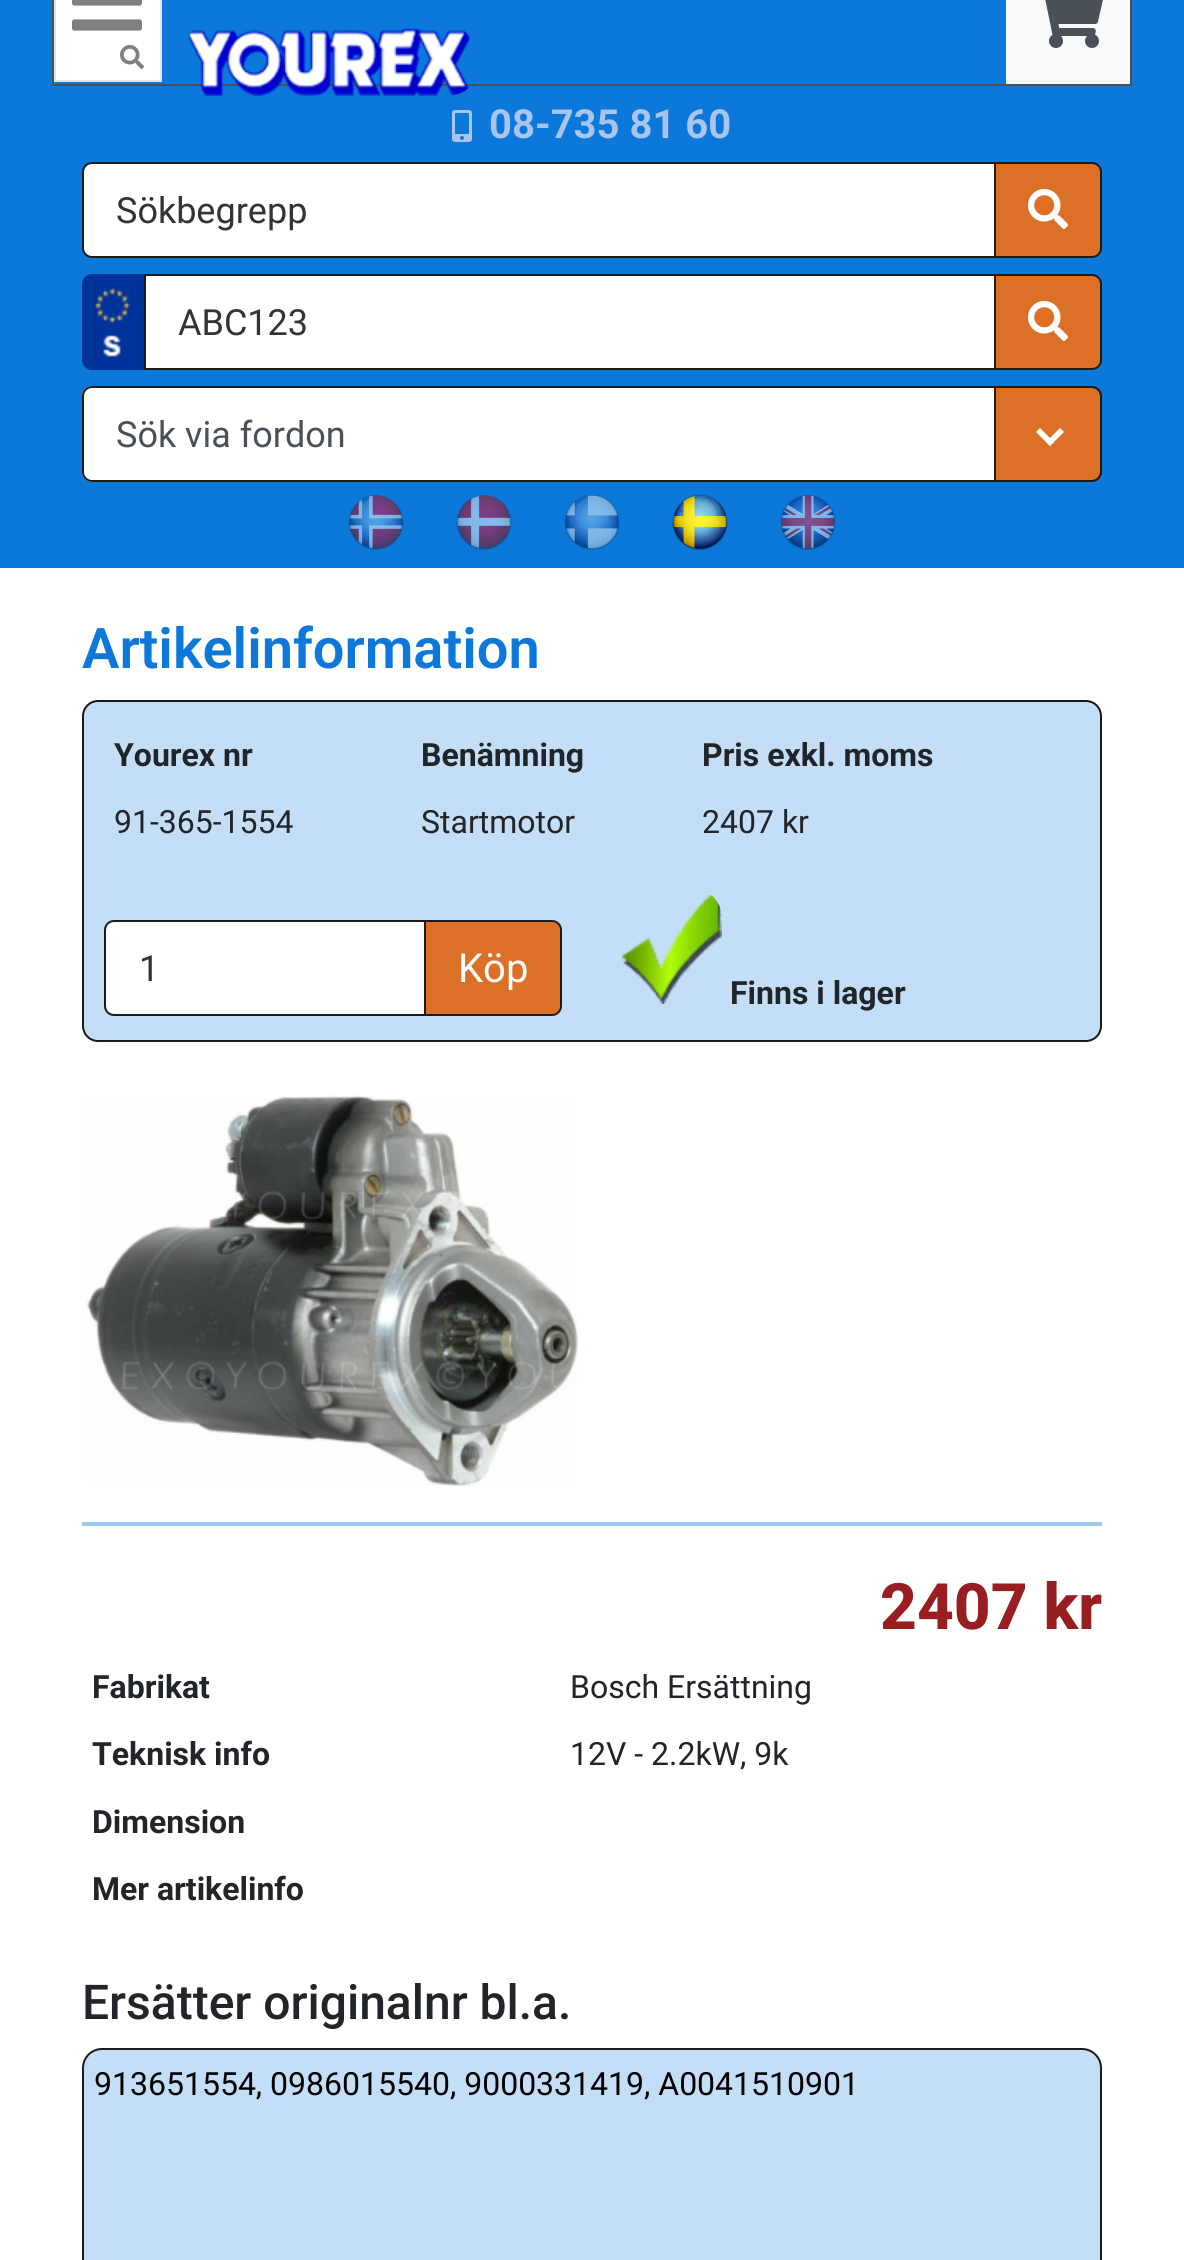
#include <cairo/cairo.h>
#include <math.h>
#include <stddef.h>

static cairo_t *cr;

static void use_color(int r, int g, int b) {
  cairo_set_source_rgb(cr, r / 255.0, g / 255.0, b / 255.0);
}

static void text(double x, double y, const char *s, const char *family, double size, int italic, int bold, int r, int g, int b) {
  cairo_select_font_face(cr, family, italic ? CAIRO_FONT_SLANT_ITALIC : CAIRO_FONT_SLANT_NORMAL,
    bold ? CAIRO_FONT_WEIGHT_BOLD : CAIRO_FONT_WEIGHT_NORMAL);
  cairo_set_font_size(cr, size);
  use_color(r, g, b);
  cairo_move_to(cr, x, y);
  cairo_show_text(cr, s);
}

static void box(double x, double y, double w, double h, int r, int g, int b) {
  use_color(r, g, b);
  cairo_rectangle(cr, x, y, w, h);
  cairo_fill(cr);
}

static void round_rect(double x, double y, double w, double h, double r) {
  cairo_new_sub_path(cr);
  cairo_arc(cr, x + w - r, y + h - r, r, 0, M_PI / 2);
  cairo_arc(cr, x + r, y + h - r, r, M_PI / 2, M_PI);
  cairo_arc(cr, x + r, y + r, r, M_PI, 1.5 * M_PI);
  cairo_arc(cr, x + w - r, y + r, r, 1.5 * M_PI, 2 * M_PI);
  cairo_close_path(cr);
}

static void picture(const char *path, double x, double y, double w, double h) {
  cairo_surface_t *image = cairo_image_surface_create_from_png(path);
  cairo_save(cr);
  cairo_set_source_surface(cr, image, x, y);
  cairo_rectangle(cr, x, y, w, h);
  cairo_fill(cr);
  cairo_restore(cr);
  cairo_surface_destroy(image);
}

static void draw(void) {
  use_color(11, 120, 218);
  cairo_paint(cr);
  cairo_rectangle(cr, 53, -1, 1078, 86);
  use_color(73, 80, 87);
  cairo_stroke(cr);
  use_color(255, 255, 255);
  cairo_rectangle(cr, 55, -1, 106, 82);
  cairo_fill_preserve(cr);
  use_color(230, 230, 230);
  cairo_stroke(cr);
  picture("img_01.png", 72, 0, 70, 31);
  picture("img_02.png", 120, 45, 24, 24);
  picture("img_03.png", 188, 28, 283, 68);
  box(1006, 0, 124, 84, 248, 249, 250);
  picture("img_04.png", 1045, 0, 58, 48);
  picture("img_05.png", 452, 110, 20, 32);
  use_color(255, 255, 255);
  cairo_new_path(cr);
  cairo_move_to(cr, 92, 163);
  cairo_line_to(cr, 995, 163);
  cairo_line_to(cr, 995, 257);
  cairo_line_to(cr, 92, 257);
  cairo_curve_to(cr, 87, 257, 83, 253, 83, 248);
  cairo_line_to(cr, 83, 172);
  cairo_curve_to(cr, 83, 167, 87, 163, 92, 163);
  cairo_close_path(cr);
  cairo_fill_preserve(cr);
  use_color(27, 27, 27);
  cairo_stroke(cr);
  use_color(221, 112, 39);
  cairo_new_path(cr);
  cairo_move_to(cr, 995, 163);
  cairo_line_to(cr, 1092, 163);
  cairo_curve_to(cr, 1097, 163, 1101, 167, 1101, 172);
  cairo_line_to(cr, 1101, 248);
  cairo_curve_to(cr, 1101, 253, 1097, 257, 1092, 257);
  cairo_line_to(cr, 995, 257);
  cairo_close_path(cr);
  cairo_fill_preserve(cr);
  use_color(27, 27, 27);
  cairo_stroke(cr);
  picture("img_06.png", 1028, 189, 40, 40);
  use_color(0, 51, 153);
  cairo_new_path(cr);
  cairo_move_to(cr, 92, 274);
  cairo_line_to(cr, 146, 274);
  cairo_line_to(cr, 146, 370);
  cairo_line_to(cr, 92, 370);
  cairo_curve_to(cr, 86.5, 370, 82, 365.5, 82, 360);
  cairo_line_to(cr, 82, 284);
  cairo_curve_to(cr, 82, 278.5, 86.5, 274, 92, 274);
  cairo_close_path(cr);
  cairo_fill(cr);
  picture("img_07.png", 95, 287, 36, 70);
  use_color(255, 255, 255);
  cairo_rectangle(cr, 145, 275, 850, 94);
  cairo_fill_preserve(cr);
  use_color(27, 27, 27);
  cairo_stroke(cr);
  use_color(221, 112, 39);
  cairo_new_path(cr);
  cairo_move_to(cr, 995, 275);
  cairo_line_to(cr, 1092, 275);
  cairo_curve_to(cr, 1097, 275, 1101, 279, 1101, 284);
  cairo_line_to(cr, 1101, 360);
  cairo_curve_to(cr, 1101, 365, 1097, 369, 1092, 369);
  cairo_line_to(cr, 995, 369);
  cairo_close_path(cr);
  cairo_fill_preserve(cr);
  use_color(27, 27, 27);
  cairo_stroke(cr);
  picture("img_06.png", 1028, 301, 40, 40);
  use_color(255, 255, 255);
  round_rect(82, 386, 1020, 96, 10);
  cairo_fill(cr);
  use_color(221, 112, 39);
  cairo_new_path(cr);
  cairo_move_to(cr, 995, 387);
  cairo_line_to(cr, 1092, 387);
  cairo_curve_to(cr, 1097, 387, 1101, 391, 1101, 396);
  cairo_line_to(cr, 1101, 472);
  cairo_curve_to(cr, 1101, 477, 1097, 481, 1092, 481);
  cairo_line_to(cr, 995, 481);
  cairo_close_path(cr);
  cairo_fill_preserve(cr);
  use_color(27, 27, 27);
  cairo_stroke(cr);
  use_color(255, 255, 255);
  cairo_new_path(cr);
  cairo_move_to(cr, 1064, 432);
  cairo_line_to(cr, 1050, 446);
  cairo_line_to(cr, 1046, 442);
  cairo_line_to(cr, 1060, 428);
  cairo_close_path(cr);
  cairo_fill(cr);
  cairo_new_path(cr);
  cairo_move_to(cr, 1054, 442);
  cairo_line_to(cr, 1050, 446);
  cairo_line_to(cr, 1036, 432);
  cairo_line_to(cr, 1040, 428);
  cairo_close_path(cr);
  cairo_fill(cr);
  round_rect(83, 387, 1018, 94, 9);
  use_color(27, 27, 27);
  cairo_stroke(cr);
  picture("img_08.png", 348, 495, 56, 56);
  picture("img_09.png", 456, 495, 56, 56);
  picture("img_10.png", 564, 495, 56, 56);
  picture("img_11.png", 672, 494, 56, 57);
  picture("img_12.png", 780, 495, 56, 56);
  box(0, 568, 1184, 1692, 255, 255, 255);
  use_color(195, 222, 246);
  round_rect(83, 701, 1018, 340, 15);
  cairo_fill_preserve(cr);
  use_color(27, 27, 27);
  cairo_stroke(cr);
  use_color(255, 255, 255);
  cairo_new_path(cr);
  cairo_move_to(cr, 114, 921);
  cairo_line_to(cr, 425, 921);
  cairo_line_to(cr, 425, 1015);
  cairo_line_to(cr, 114, 1015);
  cairo_curve_to(cr, 109, 1015, 105, 1011, 105, 1006);
  cairo_line_to(cr, 105, 930);
  cairo_curve_to(cr, 105, 925, 109, 921, 114, 921);
  cairo_close_path(cr);
  cairo_fill_preserve(cr);
  use_color(27, 27, 27);
  cairo_stroke(cr);
  use_color(221, 112, 39);
  cairo_new_path(cr);
  cairo_move_to(cr, 425, 921);
  cairo_line_to(cr, 552, 921);
  cairo_curve_to(cr, 557, 921, 561, 925, 561, 930);
  cairo_line_to(cr, 561, 1006);
  cairo_curve_to(cr, 561, 1011, 557, 1015, 552, 1015);
  cairo_line_to(cr, 425, 1015);
  cairo_close_path(cr);
  cairo_fill_preserve(cr);
  use_color(27, 27, 27);
  cairo_stroke(cr);
  picture("img_13.png", 622, 894, 100, 110);
  picture("img_14.png", 82, 1095, 498, 391);
  box(82, 1522, 1020, 4, 156, 201, 242);
  use_color(195, 222, 246);
  round_rect(83, 2049, 1018, 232, 19);
  cairo_fill_preserve(cr);
  use_color(27, 27, 27);
  cairo_stroke(cr);
  text(489, 138, "08-735 81 60", "Roboto", 40, 0, 1, 167, 197, 237);
  text(116, 223, "Sökbegrepp", "Roboto", 36, 0, 0, 51, 51, 51);
  text(178, 335, "ABC123", "Roboto", 36, 0, 0, 51, 51, 51);
  text(116, 447, "Sök via fordon", "Roboto", 36, 0, 0, 73, 80, 87);
  text(82, 668, "Artikelinformation", "Roboto SemiBold", 56, 0, 0, 11, 120, 218);
  text(114, 766, "Yourex nr", "Roboto", 32, 0, 1, 33, 37, 41);
  text(421, 766, "Benämning", "Roboto", 32, 0, 1, 33, 37, 41);
  text(702, 766, "Pris exkl. moms", "Roboto", 32, 0, 1, 33, 37, 41);
  text(114, 833, "91-365-1554", "Roboto", 32, 0, 0, 33, 37, 41);
  text(421, 833, "Startmotor", "Roboto", 32, 0, 0, 33, 37, 41);
  text(702, 833, "2407 kr", "Roboto", 32, 0, 0, 33, 37, 41);
  text(139, 981, "1", "Roboto", 36, 0, 0, 51, 51, 51);
  text(458, 982, "Köp", "Roboto", 40, 0, 0, 255, 255, 255);
  text(730, 1004, "Finns i lager", "Roboto", 32, 0, 1, 33, 37, 41);
  text(880, 1629, "2407 kr", "Roboto ExtraBold", 64, 0, 0, 152, 30, 33);
  text(92, 1698, "Fabrikat", "Roboto", 32, 0, 1, 33, 37, 41);
  text(570, 1698, "Bosch Ersättning", "Roboto", 32, 0, 0, 33, 37, 41);
  text(92, 1765, "Teknisk info", "Roboto", 32, 0, 1, 33, 37, 41);
  text(570, 1765, "12V - 2.2kW, 9k", "Roboto", 32, 0, 0, 33, 37, 41);
  text(92, 1833, "Dimension", "Roboto", 32, 0, 1, 33, 37, 41);
  text(92, 1900, "Mer artikelinfo", "Roboto", 32, 0, 1, 33, 37, 41);
  text(82, 2019, "Ersätter originalnr bl.a.", "Roboto Medium", 48, 0, 0, 33, 37, 41);
  text(94, 2095, "913651554, 0986015540, 9000331419, A0041510901", "Roboto", 32, 0, 0, 0, 0, 0);
}

int main(void) {
  cairo_surface_t *surface = cairo_image_surface_create(CAIRO_FORMAT_RGB24, 1184, 2260);
  cr = cairo_create(surface);
  cairo_font_options_t *options = cairo_font_options_create();
  cairo_font_options_set_hint_metrics(options, CAIRO_HINT_METRICS_OFF);
  cairo_font_options_set_hint_style(options, CAIRO_HINT_STYLE_NONE);
  cairo_set_font_options(cr, options);
  cairo_set_miter_limit(cr, 4);
  draw();
  cairo_surface_write_to_png(surface, "out.png");
  cairo_font_options_destroy(options);
  cairo_destroy(cr);
  cairo_surface_destroy(surface);
  return 0;
}
